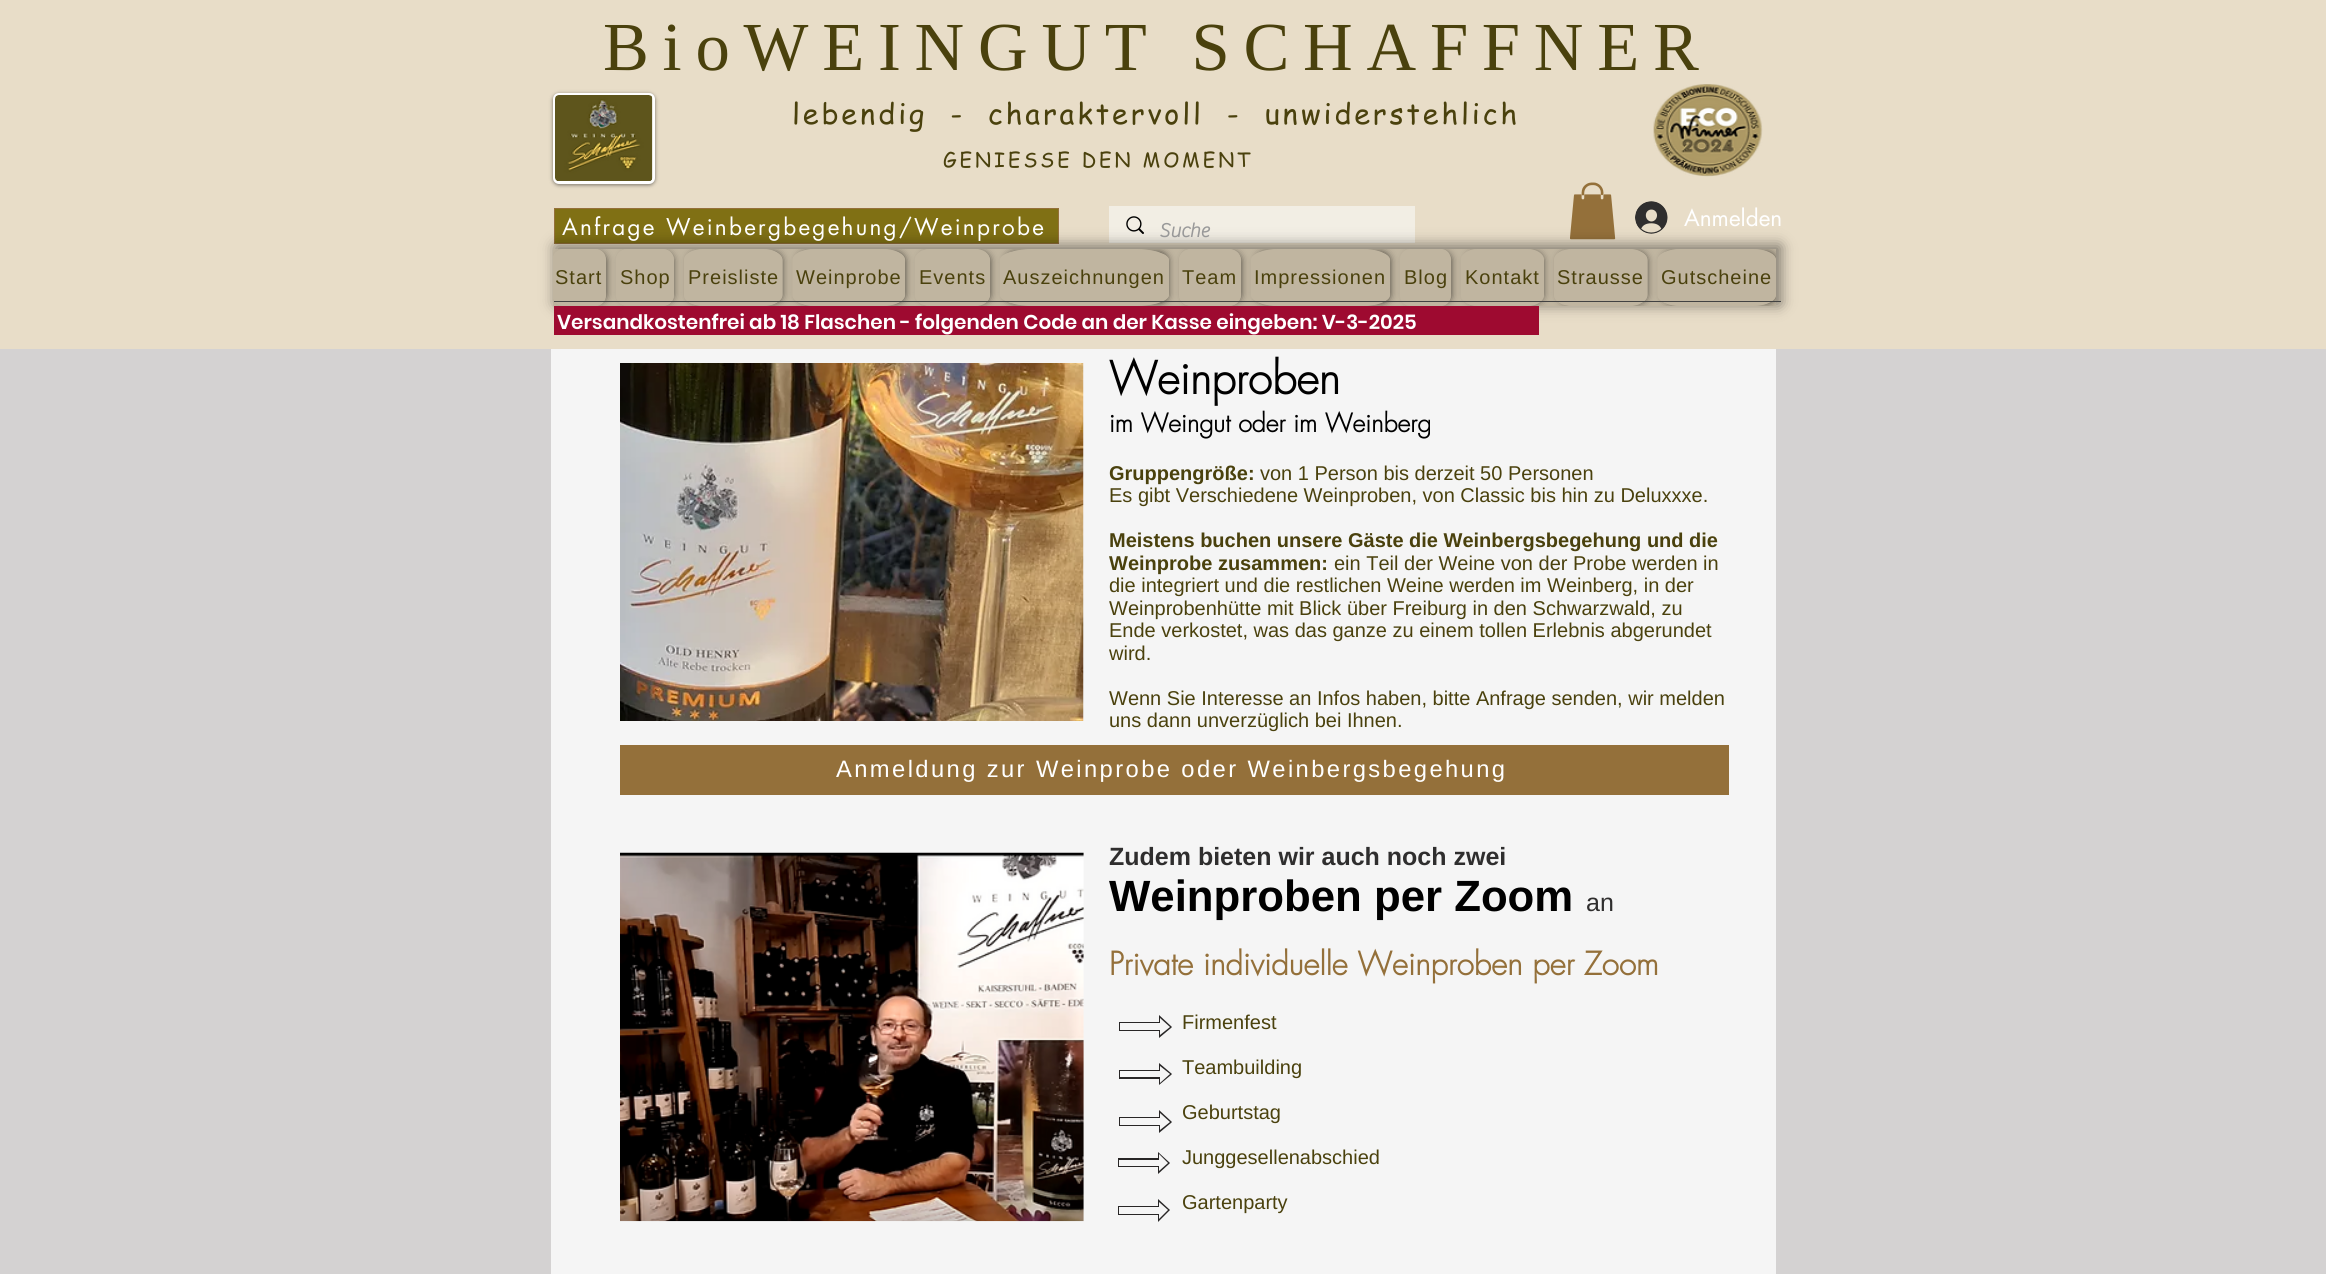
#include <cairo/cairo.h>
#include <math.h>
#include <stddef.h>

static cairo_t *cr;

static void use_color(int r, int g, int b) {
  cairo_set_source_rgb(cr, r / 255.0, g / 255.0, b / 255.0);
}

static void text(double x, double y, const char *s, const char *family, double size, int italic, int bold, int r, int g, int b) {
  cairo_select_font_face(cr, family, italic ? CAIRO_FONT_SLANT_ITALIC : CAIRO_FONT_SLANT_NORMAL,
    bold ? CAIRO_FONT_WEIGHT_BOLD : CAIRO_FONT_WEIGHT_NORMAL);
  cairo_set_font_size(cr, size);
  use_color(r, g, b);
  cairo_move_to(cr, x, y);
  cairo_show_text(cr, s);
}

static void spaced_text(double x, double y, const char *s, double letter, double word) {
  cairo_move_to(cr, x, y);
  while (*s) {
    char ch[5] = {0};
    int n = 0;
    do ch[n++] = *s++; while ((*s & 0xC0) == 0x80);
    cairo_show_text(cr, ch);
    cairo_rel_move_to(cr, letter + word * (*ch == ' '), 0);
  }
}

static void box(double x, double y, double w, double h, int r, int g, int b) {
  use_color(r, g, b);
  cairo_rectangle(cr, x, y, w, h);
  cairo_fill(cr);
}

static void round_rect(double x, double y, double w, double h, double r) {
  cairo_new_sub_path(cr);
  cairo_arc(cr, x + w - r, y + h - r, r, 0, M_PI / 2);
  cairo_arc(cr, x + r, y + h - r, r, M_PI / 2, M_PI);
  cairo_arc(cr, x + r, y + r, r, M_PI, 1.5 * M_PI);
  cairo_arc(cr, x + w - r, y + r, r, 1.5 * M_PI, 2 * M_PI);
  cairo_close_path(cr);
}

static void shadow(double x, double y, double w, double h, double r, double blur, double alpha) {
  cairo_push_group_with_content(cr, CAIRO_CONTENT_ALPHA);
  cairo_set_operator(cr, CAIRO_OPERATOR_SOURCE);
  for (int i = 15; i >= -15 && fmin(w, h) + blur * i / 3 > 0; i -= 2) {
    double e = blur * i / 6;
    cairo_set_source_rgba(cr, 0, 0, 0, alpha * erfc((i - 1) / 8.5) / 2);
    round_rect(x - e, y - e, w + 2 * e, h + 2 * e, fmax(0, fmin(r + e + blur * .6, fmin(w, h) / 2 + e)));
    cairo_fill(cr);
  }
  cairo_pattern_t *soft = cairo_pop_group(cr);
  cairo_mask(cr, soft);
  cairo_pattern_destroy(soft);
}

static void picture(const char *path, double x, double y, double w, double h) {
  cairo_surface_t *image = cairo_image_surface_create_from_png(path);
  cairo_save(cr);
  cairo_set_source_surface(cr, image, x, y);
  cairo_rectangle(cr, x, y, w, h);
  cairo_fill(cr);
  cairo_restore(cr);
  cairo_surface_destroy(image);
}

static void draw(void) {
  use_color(212, 210, 210);
  cairo_paint(cr);
  box(0, 0, 2326, 349, 232, 221, 200);
  use_color(0, 0, 0);
  shadow(553, 94, 102, 91, 6, 2, 0.5);
  round_rect(554.5, 94.5, 99, 88, 4.5);
  use_color(255, 255, 255);
  cairo_set_line_width(cr, 3);
  cairo_stroke(cr);
  picture("img_01.png", 555, 95, 98, 86);
  picture("img_02.png", 1653, 84, 110, 93);
  use_color(128, 112, 20);
  cairo_rectangle(cr, 554.5, 208.5, 504, 35);
  cairo_fill_preserve(cr);
  use_color(148, 112, 58);
  cairo_set_line_width(cr, 1);
  cairo_stroke(cr);
  box(1109, 206, 306, 37, 242, 238, 228);
  picture("img_03.png", 1126, 216, 18, 18);
  picture("img_04.png", 1570, 182, 46, 58);
  picture("img_05.png", 1635, 201, 33, 33);
  use_color(0, 0, 0);
  shadow(556, 246, 1224, 58, 0, 7.5, 0.51);
  box(553, 249, 1223, 57, 192, 181, 160);
  cairo_save(cr);
  cairo_rectangle(cr, 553, 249, 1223, 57);
  cairo_clip(cr);
  cairo_set_fill_rule(cr, CAIRO_FILL_RULE_EVEN_ODD);
  cairo_new_path(cr);
  cairo_move_to(cr, 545, 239);
  cairo_line_to(cr, 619, 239);
  cairo_line_to(cr, 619, 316);
  cairo_line_to(cr, 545, 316);
  cairo_close_path(cr);
  cairo_move_to(cr, 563, 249);
  cairo_line_to(cr, 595.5, 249);
  cairo_curve_to(cr, 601.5, 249, 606, 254, 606, 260);
  cairo_line_to(cr, 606, 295);
  cairo_curve_to(cr, 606, 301, 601.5, 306, 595.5, 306);
  cairo_line_to(cr, 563, 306);
  cairo_curve_to(cr, 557.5, 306, 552.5, 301, 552.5, 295);
  cairo_line_to(cr, 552.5, 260);
  cairo_curve_to(cr, 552.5, 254, 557.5, 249, 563, 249);
  cairo_close_path(cr);
  cairo_clip(cr);
  use_color(0, 0, 0);
  shadow(560, 254, 44, 47, 6, 4.5, 1);
  cairo_restore(cr);
  cairo_save(cr);
  cairo_rectangle(cr, 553, 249, 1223, 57);
  cairo_clip(cr);
  cairo_set_fill_rule(cr, CAIRO_FILL_RULE_EVEN_ODD);
  cairo_new_path(cr);
  cairo_move_to(cr, 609, 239);
  cairo_line_to(cr, 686, 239);
  cairo_line_to(cr, 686, 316);
  cairo_line_to(cr, 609, 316);
  cairo_close_path(cr);
  cairo_move_to(cr, 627, 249);
  cairo_line_to(cr, 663, 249);
  cairo_curve_to(cr, 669, 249, 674, 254, 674, 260);
  cairo_line_to(cr, 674, 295);
  cairo_curve_to(cr, 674, 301, 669, 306, 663, 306);
  cairo_line_to(cr, 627, 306);
  cairo_curve_to(cr, 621, 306, 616, 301, 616, 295);
  cairo_line_to(cr, 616, 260);
  cairo_curve_to(cr, 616, 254, 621, 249, 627, 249);
  cairo_close_path(cr);
  cairo_clip(cr);
  use_color(0, 0, 0);
  shadow(624, 254, 47, 47, 6, 4.5, 1);
  cairo_restore(cr);
  cairo_save(cr);
  cairo_rectangle(cr, 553, 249, 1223, 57);
  cairo_clip(cr);
  cairo_set_fill_rule(cr, CAIRO_FILL_RULE_EVEN_ODD);
  cairo_new_path(cr);
  cairo_move_to(cr, 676, 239);
  cairo_line_to(cr, 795, 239);
  cairo_line_to(cr, 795, 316);
  cairo_line_to(cr, 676, 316);
  cairo_close_path(cr);
  cairo_move_to(cr, 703.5, 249);
  cairo_line_to(cr, 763, 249);
  cairo_curve_to(cr, 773.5, 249, 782.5, 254, 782.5, 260);
  cairo_line_to(cr, 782.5, 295);
  cairo_curve_to(cr, 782.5, 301, 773.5, 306, 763, 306);
  cairo_line_to(cr, 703.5, 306);
  cairo_curve_to(cr, 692.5, 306, 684, 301, 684, 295);
  cairo_line_to(cr, 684, 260);
  cairo_curve_to(cr, 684, 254, 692.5, 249, 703.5, 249);
  cairo_close_path(cr);
  cairo_clip(cr);
  use_color(0, 0, 0);
  shadow(691, 254, 89, 47, 6, 4.5, 1);
  cairo_restore(cr);
  cairo_save(cr);
  cairo_rectangle(cr, 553, 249, 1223, 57);
  cairo_clip(cr);
  cairo_set_fill_rule(cr, CAIRO_FILL_RULE_EVEN_ODD);
  cairo_new_path(cr);
  cairo_move_to(cr, 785, 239);
  cairo_line_to(cr, 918, 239);
  cairo_line_to(cr, 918, 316);
  cairo_line_to(cr, 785, 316);
  cairo_close_path(cr);
  cairo_move_to(cr, 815, 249);
  cairo_line_to(cr, 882.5, 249);
  cairo_curve_to(cr, 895, 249, 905, 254, 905, 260);
  cairo_line_to(cr, 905, 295);
  cairo_curve_to(cr, 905, 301, 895, 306, 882.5, 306);
  cairo_line_to(cr, 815, 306);
  cairo_curve_to(cr, 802.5, 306, 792.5, 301, 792.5, 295);
  cairo_line_to(cr, 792.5, 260);
  cairo_curve_to(cr, 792.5, 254, 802.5, 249, 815, 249);
  cairo_close_path(cr);
  cairo_clip(cr);
  use_color(0, 0, 0);
  shadow(800, 254, 103, 47, 6, 4.5, 1);
  cairo_restore(cr);
  cairo_save(cr);
  cairo_rectangle(cr, 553, 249, 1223, 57);
  cairo_clip(cr);
  cairo_set_fill_rule(cr, CAIRO_FILL_RULE_EVEN_ODD);
  cairo_new_path(cr);
  cairo_move_to(cr, 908, 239);
  cairo_line_to(cr, 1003, 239);
  cairo_line_to(cr, 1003, 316);
  cairo_line_to(cr, 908, 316);
  cairo_close_path(cr);
  cairo_move_to(cr, 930, 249);
  cairo_line_to(cr, 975, 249);
  cairo_curve_to(cr, 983.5, 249, 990, 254, 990, 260);
  cairo_line_to(cr, 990, 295);
  cairo_curve_to(cr, 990, 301, 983.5, 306, 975, 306);
  cairo_line_to(cr, 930, 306);
  cairo_curve_to(cr, 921.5, 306, 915, 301, 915, 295);
  cairo_line_to(cr, 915, 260);
  cairo_curve_to(cr, 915, 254, 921.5, 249, 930, 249);
  cairo_close_path(cr);
  cairo_clip(cr);
  use_color(0, 0, 0);
  shadow(923, 254, 65, 47, 6, 4.5, 1);
  cairo_restore(cr);
  cairo_save(cr);
  cairo_rectangle(cr, 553, 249, 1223, 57);
  cairo_clip(cr);
  cairo_set_fill_rule(cr, CAIRO_FILL_RULE_EVEN_ODD);
  cairo_new_path(cr);
  cairo_move_to(cr, 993, 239);
  cairo_line_to(cr, 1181, 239);
  cairo_line_to(cr, 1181, 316);
  cairo_line_to(cr, 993, 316);
  cairo_close_path(cr);
  cairo_move_to(cr, 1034, 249);
  cairo_line_to(cr, 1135, 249);
  cairo_curve_to(cr, 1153.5, 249, 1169, 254, 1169, 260);
  cairo_line_to(cr, 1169, 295);
  cairo_curve_to(cr, 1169, 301, 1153.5, 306, 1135, 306);
  cairo_line_to(cr, 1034, 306);
  cairo_curve_to(cr, 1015, 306, 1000, 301, 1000, 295);
  cairo_line_to(cr, 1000, 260);
  cairo_curve_to(cr, 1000, 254, 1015, 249, 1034, 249);
  cairo_close_path(cr);
  cairo_clip(cr);
  use_color(0, 0, 0);
  shadow(1008, 254, 158, 47, 6, 4.5, 1);
  cairo_restore(cr);
  cairo_save(cr);
  cairo_rectangle(cr, 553, 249, 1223, 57);
  cairo_clip(cr);
  cairo_set_fill_rule(cr, CAIRO_FILL_RULE_EVEN_ODD);
  cairo_new_path(cr);
  cairo_move_to(cr, 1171, 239);
  cairo_line_to(cr, 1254, 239);
  cairo_line_to(cr, 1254, 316);
  cairo_line_to(cr, 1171, 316);
  cairo_close_path(cr);
  cairo_move_to(cr, 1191, 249);
  cairo_line_to(cr, 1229, 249);
  cairo_curve_to(cr, 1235.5, 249, 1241, 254, 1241, 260);
  cairo_line_to(cr, 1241, 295);
  cairo_curve_to(cr, 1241, 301, 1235.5, 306, 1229, 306);
  cairo_line_to(cr, 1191, 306);
  cairo_curve_to(cr, 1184.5, 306, 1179, 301, 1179, 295);
  cairo_line_to(cr, 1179, 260);
  cairo_curve_to(cr, 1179, 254, 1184.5, 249, 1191, 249);
  cairo_close_path(cr);
  cairo_clip(cr);
  use_color(0, 0, 0);
  shadow(1186, 254, 53, 47, 6, 4.5, 1);
  cairo_restore(cr);
  cairo_save(cr);
  cairo_rectangle(cr, 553, 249, 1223, 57);
  cairo_clip(cr);
  cairo_set_fill_rule(cr, CAIRO_FILL_RULE_EVEN_ODD);
  cairo_new_path(cr);
  cairo_move_to(cr, 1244, 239);
  cairo_line_to(cr, 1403, 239);
  cairo_line_to(cr, 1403, 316);
  cairo_line_to(cr, 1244, 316);
  cairo_close_path(cr);
  cairo_move_to(cr, 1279, 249);
  cairo_line_to(cr, 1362, 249);
  cairo_curve_to(cr, 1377.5, 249, 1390, 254, 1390, 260);
  cairo_line_to(cr, 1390, 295);
  cairo_curve_to(cr, 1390, 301, 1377.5, 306, 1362, 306);
  cairo_line_to(cr, 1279, 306);
  cairo_curve_to(cr, 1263.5, 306, 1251, 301, 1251, 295);
  cairo_line_to(cr, 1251, 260);
  cairo_curve_to(cr, 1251, 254, 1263.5, 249, 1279, 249);
  cairo_close_path(cr);
  cairo_clip(cr);
  use_color(0, 0, 0);
  shadow(1259, 254, 129, 47, 6, 4.5, 1);
  cairo_restore(cr);
  cairo_save(cr);
  cairo_rectangle(cr, 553, 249, 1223, 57);
  cairo_clip(cr);
  cairo_set_fill_rule(cr, CAIRO_FILL_RULE_EVEN_ODD);
  cairo_new_path(cr);
  cairo_move_to(cr, 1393, 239);
  cairo_line_to(cr, 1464, 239);
  cairo_line_to(cr, 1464, 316);
  cairo_line_to(cr, 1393, 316);
  cairo_close_path(cr);
  cairo_move_to(cr, 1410, 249);
  cairo_line_to(cr, 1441, 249);
  cairo_curve_to(cr, 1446.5, 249, 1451, 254, 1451, 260);
  cairo_line_to(cr, 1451, 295);
  cairo_curve_to(cr, 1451, 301, 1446.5, 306, 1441, 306);
  cairo_line_to(cr, 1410, 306);
  cairo_curve_to(cr, 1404.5, 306, 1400, 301, 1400, 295);
  cairo_line_to(cr, 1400, 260);
  cairo_curve_to(cr, 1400, 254, 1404.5, 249, 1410, 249);
  cairo_close_path(cr);
  cairo_clip(cr);
  use_color(0, 0, 0);
  shadow(1408, 254, 41, 47, 5, 4.5, 1);
  cairo_restore(cr);
  cairo_save(cr);
  cairo_rectangle(cr, 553, 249, 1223, 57);
  cairo_clip(cr);
  cairo_set_fill_rule(cr, CAIRO_FILL_RULE_EVEN_ODD);
  cairo_new_path(cr);
  cairo_move_to(cr, 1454, 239);
  cairo_line_to(cr, 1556, 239);
  cairo_line_to(cr, 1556, 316);
  cairo_line_to(cr, 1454, 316);
  cairo_close_path(cr);
  cairo_move_to(cr, 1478, 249);
  cairo_line_to(cr, 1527, 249);
  cairo_curve_to(cr, 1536.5, 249, 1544, 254, 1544, 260);
  cairo_line_to(cr, 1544, 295);
  cairo_curve_to(cr, 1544, 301, 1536.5, 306, 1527, 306);
  cairo_line_to(cr, 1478, 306);
  cairo_curve_to(cr, 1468.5, 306, 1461, 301, 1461, 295);
  cairo_line_to(cr, 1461, 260);
  cairo_curve_to(cr, 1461, 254, 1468.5, 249, 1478, 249);
  cairo_close_path(cr);
  cairo_clip(cr);
  use_color(0, 0, 0);
  shadow(1469, 254, 72, 47, 6, 4.5, 1);
  cairo_restore(cr);
  cairo_save(cr);
  cairo_rectangle(cr, 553, 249, 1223, 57);
  cairo_clip(cr);
  cairo_set_fill_rule(cr, CAIRO_FILL_RULE_EVEN_ODD);
  cairo_new_path(cr);
  cairo_move_to(cr, 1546, 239);
  cairo_line_to(cr, 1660, 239);
  cairo_line_to(cr, 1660, 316);
  cairo_line_to(cr, 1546, 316);
  cairo_close_path(cr);
  cairo_move_to(cr, 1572.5, 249);
  cairo_line_to(cr, 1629, 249);
  cairo_curve_to(cr, 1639, 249, 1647.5, 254, 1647.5, 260);
  cairo_line_to(cr, 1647.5, 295);
  cairo_curve_to(cr, 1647.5, 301, 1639, 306, 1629, 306);
  cairo_line_to(cr, 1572.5, 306);
  cairo_curve_to(cr, 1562, 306, 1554, 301, 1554, 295);
  cairo_line_to(cr, 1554, 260);
  cairo_curve_to(cr, 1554, 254, 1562, 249, 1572.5, 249);
  cairo_close_path(cr);
  cairo_clip(cr);
  use_color(0, 0, 0);
  shadow(1561, 254, 84, 47, 6, 4.5, 1);
  cairo_restore(cr);
  cairo_save(cr);
  cairo_rectangle(cr, 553, 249, 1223, 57);
  cairo_clip(cr);
  cairo_set_fill_rule(cr, CAIRO_FILL_RULE_EVEN_ODD);
  cairo_new_path(cr);
  cairo_move_to(cr, 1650, 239);
  cairo_line_to(cr, 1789, 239);
  cairo_line_to(cr, 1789, 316);
  cairo_line_to(cr, 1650, 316);
  cairo_close_path(cr);
  cairo_move_to(cr, 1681, 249);
  cairo_line_to(cr, 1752.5, 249);
  cairo_curve_to(cr, 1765.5, 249, 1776, 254, 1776, 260);
  cairo_line_to(cr, 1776, 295);
  cairo_curve_to(cr, 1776, 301, 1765.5, 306, 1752.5, 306);
  cairo_line_to(cr, 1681, 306);
  cairo_curve_to(cr, 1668, 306, 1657.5, 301, 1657.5, 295);
  cairo_line_to(cr, 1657.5, 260);
  cairo_curve_to(cr, 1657.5, 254, 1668, 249, 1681, 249);
  cairo_close_path(cr);
  cairo_clip(cr);
  use_color(0, 0, 0);
  shadow(1665, 254, 109, 47, 6, 4.5, 1);
  cairo_restore(cr);
  box(554, 301, 1227, 1, 66, 66, 66);
  box(554, 306, 985, 29, 158, 10, 48);
  box(551, 349, 1225, 925, 245, 245, 245);
  picture("img_06.png", 620, 363, 464, 358);
  box(620, 745, 1109, 50, 148, 112, 58);
  picture("img_07.png", 620, 852, 464, 370);
  use_color(40, 38, 38);
  cairo_new_path(cr);
  cairo_move_to(cr, 1171, 1028);
  cairo_line_to(cr, 1172, 1027);
  cairo_line_to(cr, 1159, 1015);
  cairo_line_to(cr, 1159, 1022);
  cairo_line_to(cr, 1119, 1022);
  cairo_line_to(cr, 1119, 1031);
  cairo_line_to(cr, 1159, 1031);
  cairo_line_to(cr, 1159, 1038);
  cairo_close_path(cr);
  cairo_move_to(cr, 1160, 1030);
  cairo_line_to(cr, 1120, 1030);
  cairo_line_to(cr, 1120, 1023);
  cairo_line_to(cr, 1160, 1023);
  cairo_line_to(cr, 1160, 1018);
  cairo_line_to(cr, 1170, 1027);
  cairo_line_to(cr, 1160, 1035);
  cairo_close_path(cr);
  cairo_fill(cr);
  cairo_new_path(cr);
  cairo_move_to(cr, 1171, 1075);
  cairo_line_to(cr, 1172, 1074);
  cairo_line_to(cr, 1159, 1063);
  cairo_line_to(cr, 1159, 1070);
  cairo_line_to(cr, 1119, 1070);
  cairo_line_to(cr, 1119, 1079);
  cairo_line_to(cr, 1159, 1079);
  cairo_line_to(cr, 1159, 1085);
  cairo_close_path(cr);
  cairo_move_to(cr, 1160, 1077);
  cairo_line_to(cr, 1120, 1077);
  cairo_line_to(cr, 1120, 1071);
  cairo_line_to(cr, 1160, 1071);
  cairo_line_to(cr, 1160, 1066);
  cairo_line_to(cr, 1170, 1074);
  cairo_line_to(cr, 1160, 1083);
  cairo_close_path(cr);
  cairo_fill(cr);
  cairo_new_path(cr);
  cairo_move_to(cr, 1171, 1123);
  cairo_line_to(cr, 1172, 1122);
  cairo_line_to(cr, 1159, 1110);
  cairo_line_to(cr, 1159, 1117);
  cairo_line_to(cr, 1119, 1117);
  cairo_line_to(cr, 1119, 1126);
  cairo_line_to(cr, 1159, 1126);
  cairo_line_to(cr, 1159, 1133);
  cairo_close_path(cr);
  cairo_move_to(cr, 1160, 1125);
  cairo_line_to(cr, 1120, 1125);
  cairo_line_to(cr, 1120, 1118);
  cairo_line_to(cr, 1160, 1118);
  cairo_line_to(cr, 1160, 1113);
  cairo_line_to(cr, 1170, 1122);
  cairo_line_to(cr, 1160, 1130);
  cairo_close_path(cr);
  cairo_fill(cr);
  cairo_new_path(cr);
  cairo_move_to(cr, 1169, 1164);
  cairo_line_to(cr, 1170, 1163);
  cairo_line_to(cr, 1158, 1152);
  cairo_line_to(cr, 1158, 1158);
  cairo_line_to(cr, 1118, 1158);
  cairo_line_to(cr, 1118, 1167);
  cairo_line_to(cr, 1158, 1167);
  cairo_line_to(cr, 1158, 1174);
  cairo_close_path(cr);
  cairo_move_to(cr, 1159, 1166);
  cairo_line_to(cr, 1119, 1166);
  cairo_line_to(cr, 1119, 1160);
  cairo_line_to(cr, 1159, 1160);
  cairo_line_to(cr, 1159, 1154);
  cairo_line_to(cr, 1168, 1163);
  cairo_line_to(cr, 1159, 1171);
  cairo_close_path(cr);
  cairo_fill(cr);
  cairo_new_path(cr);
  cairo_move_to(cr, 1169, 1211);
  cairo_line_to(cr, 1170, 1210);
  cairo_line_to(cr, 1158, 1199);
  cairo_line_to(cr, 1158, 1206);
  cairo_line_to(cr, 1118, 1206);
  cairo_line_to(cr, 1118, 1215);
  cairo_line_to(cr, 1158, 1215);
  cairo_line_to(cr, 1158, 1222);
  cairo_close_path(cr);
  cairo_move_to(cr, 1159, 1214);
  cairo_line_to(cr, 1119, 1214);
  cairo_line_to(cr, 1119, 1207);
  cairo_line_to(cr, 1159, 1207);
  cairo_line_to(cr, 1159, 1202);
  cairo_line_to(cr, 1168, 1210);
  cairo_line_to(cr, 1159, 1219);
  cairo_close_path(cr);
  cairo_fill(cr);
  cairo_select_font_face(cr, "Liberation Serif", CAIRO_FONT_SLANT_NORMAL, CAIRO_FONT_WEIGHT_NORMAL);
  cairo_set_font_size(cr, 68.75);
  use_color(74, 65, 13);
  spaced_text(603, 70, "BioWEINGUT SCHAFFNER", 13.75, 0);
  cairo_select_font_face(cr, "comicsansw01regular", CAIRO_FONT_SLANT_NORMAL, CAIRO_FONT_WEIGHT_NORMAL);
  cairo_set_font_size(cr, 28.75);
  spaced_text(792, 124, "lebendig  -  charaktervoll  -  unwiderstehlich", 2.9, 0);
  cairo_set_font_size(cr, 20);
  spaced_text(943, 167, "GENIESSE DEN MOMENT", 3, 0);
  cairo_select_font_face(cr, "futura", CAIRO_FONT_SLANT_NORMAL, CAIRO_FONT_WEIGHT_NORMAL);
  cairo_set_font_size(cr, 22.5);
  use_color(255, 255, 255);
  spaced_text(562, 235, "Anfrage Weinbergbegehung/Weinprobe", 2.25, 0);
  text(1159, 237, "Suche", "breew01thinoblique", 20, 0, 1, 153, 153, 153);
  text(1684, 226, "Anmelden", "futura", 22.5, 0, 0, 255, 255, 255);
  cairo_select_font_face(cr, "Liberation Sans", CAIRO_FONT_SLANT_NORMAL, CAIRO_FONT_WEIGHT_NORMAL);
  cairo_set_font_size(cr, 20);
  use_color(74, 65, 13);
  spaced_text(555, 284, "Start", 1, 0);
  spaced_text(620, 284, "Shop", 1, 0);
  spaced_text(688, 284, "Preisliste", 1, 0);
  spaced_text(796, 284, "Weinprobe", 1, 0);
  spaced_text(919, 284, "Events", 1, 0);
  spaced_text(1003, 284, "Auszeichnungen", 1, 0);
  spaced_text(1182, 284, "Team", 1, 0);
  spaced_text(1254, 284, "Impressionen", 1, 0);
  spaced_text(1404, 284, "Blog", 1, 0);
  spaced_text(1465, 284, "Kontakt", 1, 0);
  spaced_text(1557, 284, "Strausse", 1, 0);
  spaced_text(1661, 284, "Gutscheine", 1, 0);
  text(557, 329, "Versandkostenfrei ab 18 Flaschen - folgenden Code an der Kasse eingeben: V-3-2025", "Poppins SemiBold", 20, 0, 0, 255, 255, 255);
  text(1109, 394, "Weinproben", "futura", 43.75, 0, 1, 0, 0, 0);
  text(1109, 432, "im Weingut oder im Weinberg", "futura", 25, 0, 1, 0, 0, 0);
  text(1109, 480, "Gruppengröße:", "Liberation Sans", 20, 0, 1, 74, 65, 13);
  text(1260, 480, "von 1 Person bis derzeit 50 Personen", "Liberation Sans", 20, 0, 0, 74, 65, 13);
  text(1109, 502, "Es gibt Verschiedene Weinproben, von Classic bis hin zu Deluxxxe.", "Liberation Sans", 20, 0, 0, 74, 65, 13);
  text(1109, 547, "Meistens buchen unsere Gäste die Weinbergsbegehung und die", "Liberation Sans", 20, 0, 1, 74, 65, 13);
  text(1109, 570, "Weinprobe zusammen:", "Liberation Sans", 20, 0, 1, 74, 65, 13);
  text(1334, 570, "ein Teil der Weine von der Probe werden in", "Liberation Sans", 20, 0, 0, 74, 65, 13);
  text(1109, 592, "die integriert und die restlichen Weine werden im Weinberg, in der", "Liberation Sans", 20, 0, 0, 74, 65, 13);
  text(1109, 615, "Weinprobenhütte mit Blick über Freiburg in den Schwarzwald, zu", "Liberation Sans", 20, 0, 0, 74, 65, 13);
  text(1109, 637, "Ende verkostet, was das ganze zu einem tollen Erlebnis abgerundet", "Liberation Sans", 20, 0, 0, 74, 65, 13);
  text(1109, 660, "wird.", "Liberation Sans", 20, 0, 0, 74, 65, 13);
  text(1109, 705, "Wenn Sie Interesse an Infos haben, bitte Anfrage senden, wir melden", "Liberation Sans", 20, 0, 0, 74, 65, 13);
  text(1109, 727, "uns dann unverzüglich bei Ihnen.", "Liberation Sans", 20, 0, 0, 74, 65, 13);
  cairo_set_font_size(cr, 23.75);
  use_color(255, 255, 255);
  spaced_text(836, 777, "Anmeldung zur Weinprobe oder Weinbergsbegehung", 2.4, 0);
  text(1109, 865, "Zudem bieten wir auch noch zwei", "Liberation Sans", 25, 0, 1, 47, 46, 46);
  text(1109, 911, "Weinproben per Zoom", "Liberation Sans", 43.75, 0, 1, 0, 0, 0);
  text(1586, 911, "an", "Liberation Sans", 25, 0, 0, 47, 46, 46);
  text(1109, 975, "Private individuelle Weinproben per Zoom", "futura", 31.25, 0, 1, 148, 112, 58);
  text(1182, 1029, "Firmenfest", "Liberation Sans", 20, 0, 0, 74, 65, 13);
  text(1182, 1074, "Teambuilding", "Liberation Sans", 20, 0, 0, 74, 65, 13);
  text(1182, 1119, "Geburtstag", "Liberation Sans", 20, 0, 0, 74, 65, 13);
  text(1182, 1164, "Junggesellenabschied", "Liberation Sans", 20, 0, 0, 74, 65, 13);
  text(1182, 1209, "Gartenparty", "Liberation Sans", 20, 0, 0, 74, 65, 13);
}

int main(void) {
  cairo_surface_t *surface = cairo_image_surface_create(CAIRO_FORMAT_RGB24, 2326, 1274);
  cr = cairo_create(surface);
  cairo_font_options_t *options = cairo_font_options_create();
  cairo_font_options_set_hint_metrics(options, CAIRO_HINT_METRICS_OFF);
  cairo_font_options_set_hint_style(options, CAIRO_HINT_STYLE_NONE);
  cairo_set_font_options(cr, options);
  cairo_set_miter_limit(cr, 4);
  draw();
  cairo_surface_write_to_png(surface, "out.png");
  cairo_font_options_destroy(options);
  cairo_destroy(cr);
  cairo_surface_destroy(surface);
  return 0;
}
